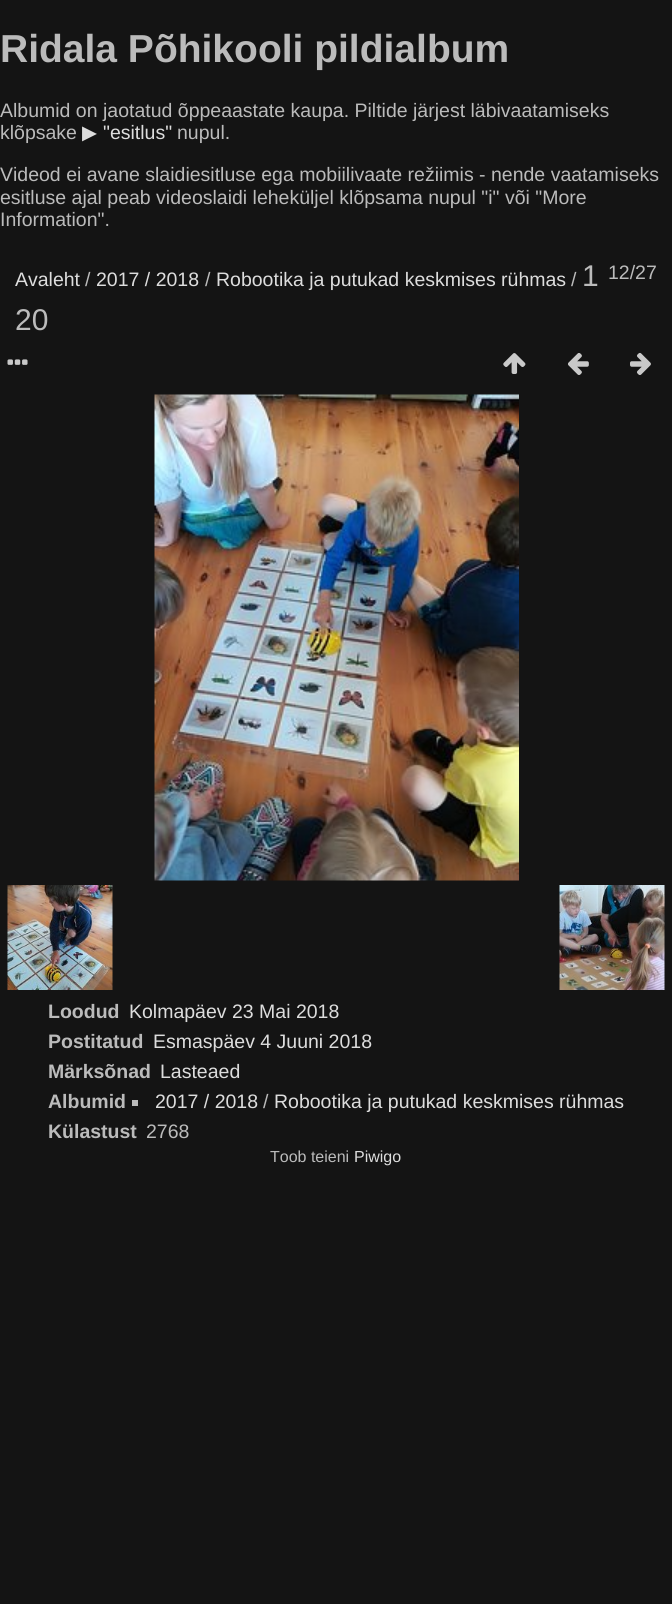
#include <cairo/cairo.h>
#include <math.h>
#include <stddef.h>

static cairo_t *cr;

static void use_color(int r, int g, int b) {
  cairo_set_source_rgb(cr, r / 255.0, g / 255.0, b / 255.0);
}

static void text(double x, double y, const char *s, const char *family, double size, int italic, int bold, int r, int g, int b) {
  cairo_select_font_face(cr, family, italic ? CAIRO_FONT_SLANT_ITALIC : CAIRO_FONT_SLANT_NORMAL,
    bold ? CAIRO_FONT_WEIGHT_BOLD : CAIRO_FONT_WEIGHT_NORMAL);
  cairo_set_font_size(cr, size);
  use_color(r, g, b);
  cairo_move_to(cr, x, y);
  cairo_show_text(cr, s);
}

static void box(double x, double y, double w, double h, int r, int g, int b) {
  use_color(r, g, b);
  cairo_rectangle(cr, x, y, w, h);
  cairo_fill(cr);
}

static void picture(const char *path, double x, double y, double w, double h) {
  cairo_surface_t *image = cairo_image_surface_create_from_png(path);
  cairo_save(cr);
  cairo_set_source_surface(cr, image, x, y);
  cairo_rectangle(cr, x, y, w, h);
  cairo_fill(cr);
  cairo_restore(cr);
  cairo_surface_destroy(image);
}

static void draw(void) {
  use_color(20, 20, 20);
  cairo_paint(cr);
  picture("img_01.png", 7, 359, 21, 6);
  picture("img_02.png", 503, 353, 23, 21);
  picture("img_03.png", 568, 353, 21, 22);
  picture("img_04.png", 630, 352, 21, 23);
  picture("img_05.png", 154, 394, 365, 487);
  picture("img_06.png", 7, 885, 106, 105);
  picture("img_07.png", 559, 885, 106, 105);
  box(132, 1100, 6, 6, 187, 187, 187);
  text(0, 62, "Ridala Põhikooli pildialbum", "Liberation Sans", 39, 0, 1, 187, 187, 187);
  text(0, 117, "Albumid on jaotatud õppeaastate kaupa. Piltide järjest läbivaatamiseks", "Liberation Sans", 19.5, 0, 0, 187, 187, 187);
  text(0, 139, "klõpsake", "Liberation Sans", 19.5, 0, 0, 187, 187, 187);
  text(82, 139, "▶", "DejaVu Sans", 19.5, 0, 0, 221, 221, 221);
  text(103, 139, "\"esitlus\"", "Liberation Sans", 19.5, 0, 0, 221, 221, 221);
  text(177, 139, "nupul.", "Liberation Sans", 19.5, 0, 0, 187, 187, 187);
  text(0, 181, "Videod ei avane slaidiesitluse ega mobiilivaate režiimis - nende vaatamiseks", "Liberation Sans", 19.5, 0, 0, 187, 187, 187);
  text(0, 204, "esitluse ajal peab videoslaidi leheküljel klõpsama nupul \"i\" või \"More", "Liberation Sans", 19.5, 0, 0, 187, 187, 187);
  text(0, 226, "Information\".", "Liberation Sans", 19.5, 0, 0, 187, 187, 187);
  text(15, 286, "Avaleht", "Liberation Sans", 19.5, 0, 0, 221, 221, 221);
  text(85, 286, "/", "Liberation Sans", 19.5, 0, 0, 187, 187, 187);
  text(96, 286, "2017 / 2018", "Liberation Sans", 19.5, 0, 0, 221, 221, 221);
  text(205, 286, "/", "Liberation Sans", 19.5, 0, 0, 187, 187, 187);
  text(216, 286, "Robootika ja putukad keskmises rühmas", "Liberation Sans", 19.5, 0, 0, 221, 221, 221);
  text(571, 286, "/", "Liberation Sans", 19.5, 0, 0, 187, 187, 187);
  text(582, 286, "1", "Liberation Sans", 30, 0, 0, 187, 187, 187);
  text(15, 330, "20", "Liberation Sans", 30, 0, 0, 187, 187, 187);
  text(608, 279, "12/27", "Liberation Sans", 19.5, 0, 0, 187, 187, 187);
  text(48, 1018, "Loodud", "Liberation Sans", 19.5, 0, 1, 187, 187, 187);
  text(129, 1018, "Kolmapäev 23 Mai 2018", "Liberation Sans", 19.5, 0, 0, 221, 221, 221);
  text(48, 1048, "Postitatud", "Liberation Sans", 19.5, 0, 1, 187, 187, 187);
  text(153, 1048, "Esmaspäev 4 Juuni 2018", "Liberation Sans", 19.5, 0, 0, 221, 221, 221);
  text(48, 1078, "Märksõnad", "Liberation Sans", 19.5, 0, 1, 187, 187, 187);
  text(160, 1078, "Lasteaed", "Liberation Sans", 19.5, 0, 0, 221, 221, 221);
  text(48, 1108, "Albumid", "Liberation Sans", 19.5, 0, 1, 187, 187, 187);
  text(155, 1108, "2017 / 2018", "Liberation Sans", 19.5, 0, 0, 221, 221, 221);
  text(263, 1108, "/", "Liberation Sans", 19.5, 0, 0, 187, 187, 187);
  text(274, 1108, "Robootika ja putukad keskmises rühmas", "Liberation Sans", 19.5, 0, 0, 221, 221, 221);
  text(48, 1138, "Külastust", "Liberation Sans", 19.5, 0, 1, 187, 187, 187);
  text(146, 1138, "2768", "Liberation Sans", 19.5, 0, 0, 187, 187, 187);
  text(270, 1162, "Toob teieni", "Liberation Sans", 16, 0, 0, 187, 187, 187);
  text(354, 1162, "Piwigo", "Liberation Sans", 16, 0, 0, 221, 221, 221);
}

int main(void) {
  cairo_surface_t *surface = cairo_image_surface_create(CAIRO_FORMAT_RGB24, 672, 1604);
  cr = cairo_create(surface);
  cairo_font_options_t *options = cairo_font_options_create();
  cairo_font_options_set_hint_metrics(options, CAIRO_HINT_METRICS_OFF);
  cairo_font_options_set_hint_style(options, CAIRO_HINT_STYLE_NONE);
  cairo_set_font_options(cr, options);
  cairo_set_miter_limit(cr, 4);
  draw();
  cairo_surface_write_to_png(surface, "out.png");
  cairo_font_options_destroy(options);
  cairo_destroy(cr);
  cairo_surface_destroy(surface);
  return 0;
}
